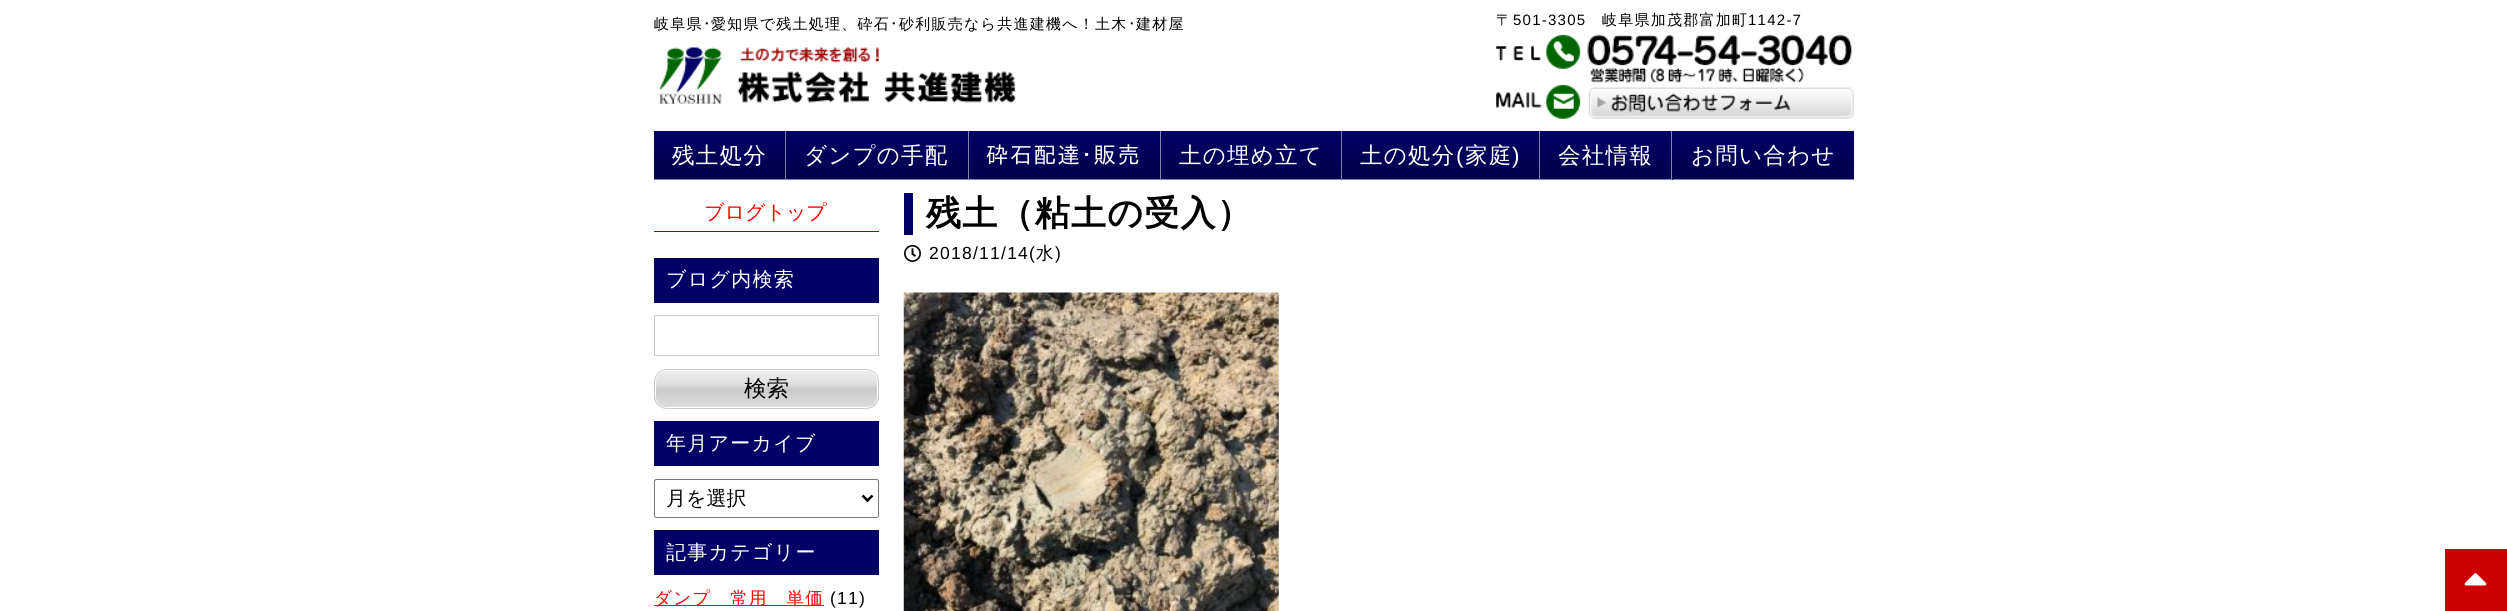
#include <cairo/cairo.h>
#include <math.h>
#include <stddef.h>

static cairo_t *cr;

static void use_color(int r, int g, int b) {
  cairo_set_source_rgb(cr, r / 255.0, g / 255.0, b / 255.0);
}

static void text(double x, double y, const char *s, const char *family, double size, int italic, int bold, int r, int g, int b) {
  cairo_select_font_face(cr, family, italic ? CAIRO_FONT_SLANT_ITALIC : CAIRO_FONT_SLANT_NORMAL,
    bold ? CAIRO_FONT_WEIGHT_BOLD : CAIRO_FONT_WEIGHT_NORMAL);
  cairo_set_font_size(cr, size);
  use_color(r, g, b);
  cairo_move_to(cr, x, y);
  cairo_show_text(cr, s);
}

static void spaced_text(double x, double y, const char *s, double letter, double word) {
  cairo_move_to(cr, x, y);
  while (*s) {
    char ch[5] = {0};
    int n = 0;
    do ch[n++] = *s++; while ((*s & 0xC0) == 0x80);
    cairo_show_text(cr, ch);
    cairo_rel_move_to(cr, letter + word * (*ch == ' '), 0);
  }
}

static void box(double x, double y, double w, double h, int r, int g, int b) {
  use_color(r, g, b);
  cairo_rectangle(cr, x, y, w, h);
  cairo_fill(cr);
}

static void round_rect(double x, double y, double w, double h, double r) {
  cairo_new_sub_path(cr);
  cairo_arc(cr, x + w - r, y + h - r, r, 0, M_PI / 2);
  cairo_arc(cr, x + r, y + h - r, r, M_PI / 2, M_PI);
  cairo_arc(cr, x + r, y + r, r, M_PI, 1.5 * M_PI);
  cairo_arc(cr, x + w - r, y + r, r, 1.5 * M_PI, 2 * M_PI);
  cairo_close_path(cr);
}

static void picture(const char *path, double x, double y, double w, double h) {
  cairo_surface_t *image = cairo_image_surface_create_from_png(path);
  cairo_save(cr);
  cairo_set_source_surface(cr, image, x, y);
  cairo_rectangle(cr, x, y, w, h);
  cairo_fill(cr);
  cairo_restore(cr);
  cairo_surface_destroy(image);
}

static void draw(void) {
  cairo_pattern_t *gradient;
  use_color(255, 255, 255);
  cairo_paint(cr);
  picture("img_01.png", 1496, 34, 356, 49);
  picture("img_02.png", 1496, 82, 358, 37);
  picture("img_03.png", 658, 47, 358, 57);
  gradient = cairo_pattern_create_linear(719, 131, 719, 179);
  cairo_pattern_add_color_stop_rgba(gradient, 0, 0, 0, 0.4, 1);
  cairo_pattern_add_color_stop_rgba(gradient, 1, 0, 0, 0.302, 1);
  cairo_set_source(cr, gradient);
  cairo_pattern_destroy(gradient);
  cairo_rectangle(cr, 654, 131, 132, 48);
  cairo_fill(cr);
  gradient = cairo_pattern_create_linear(719, 179, 719, 226);
  cairo_pattern_add_color_stop_rgba(gradient, 0, 0, 0, 0.4, 1);
  cairo_pattern_add_color_stop_rgba(gradient, 1, 0, 0, 0.302, 1);
  cairo_set_source(cr, gradient);
  cairo_pattern_destroy(gradient);
  cairo_rectangle(cr, 654, 179, 132, 1);
  cairo_fill(cr);
  cairo_set_source_rgba(cr, 1, 1, 1, 0.5);
  cairo_new_path(cr);
  cairo_move_to(cr, 786, 131);
  cairo_line_to(cr, 786, 180);
  cairo_line_to(cr, 785, 179);
  cairo_line_to(cr, 785, 131);
  cairo_close_path(cr);
  cairo_fill(cr);
  cairo_new_path(cr);
  cairo_move_to(cr, 786, 180);
  cairo_line_to(cr, 654, 180);
  cairo_line_to(cr, 654, 179);
  cairo_line_to(cr, 785, 179);
  cairo_close_path(cr);
  cairo_fill(cr);
  gradient = cairo_pattern_create_linear(877, 131, 877, 179);
  cairo_pattern_add_color_stop_rgba(gradient, 0, 0, 0, 0.4, 1);
  cairo_pattern_add_color_stop_rgba(gradient, 1, 0, 0, 0.302, 1);
  cairo_set_source(cr, gradient);
  cairo_pattern_destroy(gradient);
  cairo_rectangle(cr, 786, 131, 183, 48);
  cairo_fill(cr);
  gradient = cairo_pattern_create_linear(877, 179, 877, 226);
  cairo_pattern_add_color_stop_rgba(gradient, 0, 0, 0, 0.4, 1);
  cairo_pattern_add_color_stop_rgba(gradient, 1, 0, 0, 0.302, 1);
  cairo_set_source(cr, gradient);
  cairo_pattern_destroy(gradient);
  cairo_rectangle(cr, 786, 179, 183, 1);
  cairo_fill(cr);
  cairo_set_source_rgba(cr, 1, 1, 1, 0.5);
  cairo_new_path(cr);
  cairo_move_to(cr, 969, 131);
  cairo_line_to(cr, 969, 180);
  cairo_line_to(cr, 968, 179);
  cairo_line_to(cr, 968, 131);
  cairo_close_path(cr);
  cairo_fill(cr);
  cairo_new_path(cr);
  cairo_move_to(cr, 969, 180);
  cairo_line_to(cr, 786, 180);
  cairo_line_to(cr, 786, 179);
  cairo_line_to(cr, 968, 179);
  cairo_close_path(cr);
  cairo_fill(cr);
  gradient = cairo_pattern_create_linear(1064, 131, 1064, 179);
  cairo_pattern_add_color_stop_rgba(gradient, 0, 0, 0, 0.4, 1);
  cairo_pattern_add_color_stop_rgba(gradient, 1, 0, 0, 0.302, 1);
  cairo_set_source(cr, gradient);
  cairo_pattern_destroy(gradient);
  cairo_rectangle(cr, 969, 131, 192, 48);
  cairo_fill(cr);
  gradient = cairo_pattern_create_linear(1064, 179, 1064, 226);
  cairo_pattern_add_color_stop_rgba(gradient, 0, 0, 0, 0.4, 1);
  cairo_pattern_add_color_stop_rgba(gradient, 1, 0, 0, 0.302, 1);
  cairo_set_source(cr, gradient);
  cairo_pattern_destroy(gradient);
  cairo_rectangle(cr, 969, 179, 192, 1);
  cairo_fill(cr);
  cairo_set_source_rgba(cr, 1, 1, 1, 0.5);
  cairo_new_path(cr);
  cairo_move_to(cr, 1161, 131);
  cairo_line_to(cr, 1161, 180);
  cairo_line_to(cr, 1160, 179);
  cairo_line_to(cr, 1160, 131);
  cairo_close_path(cr);
  cairo_fill(cr);
  cairo_new_path(cr);
  cairo_move_to(cr, 1161, 180);
  cairo_line_to(cr, 969, 180);
  cairo_line_to(cr, 969, 179);
  cairo_line_to(cr, 1160, 179);
  cairo_close_path(cr);
  cairo_fill(cr);
  gradient = cairo_pattern_create_linear(1251, 131, 1251, 179);
  cairo_pattern_add_color_stop_rgba(gradient, 0, 0, 0, 0.4, 1);
  cairo_pattern_add_color_stop_rgba(gradient, 1, 0, 0, 0.302, 1);
  cairo_set_source(cr, gradient);
  cairo_pattern_destroy(gradient);
  cairo_rectangle(cr, 1161, 131, 182, 48);
  cairo_fill(cr);
  gradient = cairo_pattern_create_linear(1251, 179, 1251, 226);
  cairo_pattern_add_color_stop_rgba(gradient, 0, 0, 0, 0.4, 1);
  cairo_pattern_add_color_stop_rgba(gradient, 1, 0, 0, 0.302, 1);
  cairo_set_source(cr, gradient);
  cairo_pattern_destroy(gradient);
  cairo_rectangle(cr, 1161, 179, 182, 1);
  cairo_fill(cr);
  cairo_set_source_rgba(cr, 1, 1, 1, 0.5);
  cairo_new_path(cr);
  cairo_move_to(cr, 1342, 131);
  cairo_line_to(cr, 1342, 180);
  cairo_line_to(cr, 1341, 179);
  cairo_line_to(cr, 1341, 131);
  cairo_close_path(cr);
  cairo_fill(cr);
  cairo_new_path(cr);
  cairo_move_to(cr, 1342, 180);
  cairo_line_to(cr, 1161, 180);
  cairo_line_to(cr, 1161, 179);
  cairo_line_to(cr, 1341, 179);
  cairo_close_path(cr);
  cairo_fill(cr);
  gradient = cairo_pattern_create_linear(1441, 131, 1441, 179);
  cairo_pattern_add_color_stop_rgba(gradient, 0, 0, 0, 0.4, 1);
  cairo_pattern_add_color_stop_rgba(gradient, 1, 0, 0, 0.302, 1);
  cairo_set_source(cr, gradient);
  cairo_pattern_destroy(gradient);
  cairo_rectangle(cr, 1343, 131, 197, 48);
  cairo_fill(cr);
  gradient = cairo_pattern_create_linear(1441, 179, 1441, 226);
  cairo_pattern_add_color_stop_rgba(gradient, 0, 0, 0, 0.4, 1);
  cairo_pattern_add_color_stop_rgba(gradient, 1, 0, 0, 0.302, 1);
  cairo_set_source(cr, gradient);
  cairo_pattern_destroy(gradient);
  cairo_rectangle(cr, 1343, 179, 197, 1);
  cairo_fill(cr);
  cairo_set_source_rgba(cr, 1, 1, 1, 0.5);
  cairo_new_path(cr);
  cairo_move_to(cr, 1540, 131);
  cairo_line_to(cr, 1540, 180);
  cairo_line_to(cr, 1539, 179);
  cairo_line_to(cr, 1539, 131);
  cairo_close_path(cr);
  cairo_fill(cr);
  cairo_new_path(cr);
  cairo_move_to(cr, 1540, 180);
  cairo_line_to(cr, 1342, 180);
  cairo_line_to(cr, 1342, 179);
  cairo_line_to(cr, 1539, 179);
  cairo_close_path(cr);
  cairo_fill(cr);
  gradient = cairo_pattern_create_linear(1606, 131, 1606, 179);
  cairo_pattern_add_color_stop_rgba(gradient, 0, 0, 0, 0.4, 1);
  cairo_pattern_add_color_stop_rgba(gradient, 1, 0, 0, 0.302, 1);
  cairo_set_source(cr, gradient);
  cairo_pattern_destroy(gradient);
  cairo_rectangle(cr, 1540, 131, 133, 48);
  cairo_fill(cr);
  gradient = cairo_pattern_create_linear(1606, 179, 1606, 226);
  cairo_pattern_add_color_stop_rgba(gradient, 0, 0, 0, 0.4, 1);
  cairo_pattern_add_color_stop_rgba(gradient, 1, 0, 0, 0.302, 1);
  cairo_set_source(cr, gradient);
  cairo_pattern_destroy(gradient);
  cairo_rectangle(cr, 1540, 179, 133, 1);
  cairo_fill(cr);
  cairo_set_source_rgba(cr, 1, 1, 1, 0.5);
  cairo_new_path(cr);
  cairo_move_to(cr, 1672, 131);
  cairo_line_to(cr, 1672, 180);
  cairo_line_to(cr, 1671, 179);
  cairo_line_to(cr, 1671, 131);
  cairo_close_path(cr);
  cairo_fill(cr);
  cairo_new_path(cr);
  cairo_move_to(cr, 1672, 180);
  cairo_line_to(cr, 1540, 180);
  cairo_line_to(cr, 1540, 179);
  cairo_line_to(cr, 1671, 179);
  cairo_close_path(cr);
  cairo_fill(cr);
  gradient = cairo_pattern_create_linear(1763, 131, 1763, 179);
  cairo_pattern_add_color_stop_rgba(gradient, 0, 0, 0, 0.4, 1);
  cairo_pattern_add_color_stop_rgba(gradient, 1, 0, 0, 0.302, 1);
  cairo_set_source(cr, gradient);
  cairo_pattern_destroy(gradient);
  cairo_rectangle(cr, 1673, 131, 181, 48);
  cairo_fill(cr);
  box(1673, 179, 181, 1, 128, 128, 179);
  box(654, 231, 225, 1, 153, 0, 0);
  box(654, 258, 225, 45, 0, 0, 102);
  cairo_rectangle(cr, 654.5, 315.5, 224, 40);
  use_color(204, 204, 204);
  cairo_set_line_width(cr, 1);
  cairo_stroke(cr);
  cairo_save(cr);
  round_rect(654, 369, 225, 40, 13);
  cairo_clip(cr);
  gradient = cairo_pattern_create_linear(766, 370, 766, 408);
  cairo_pattern_add_color_stop_rgba(gradient, 0, 0.937, 0.937, 0.937, 1);
  cairo_pattern_add_color_stop_rgba(gradient, 0.4, 0.867, 0.867, 0.867, 1);
  cairo_pattern_add_color_stop_rgba(gradient, 0.5, 0.8, 0.8, 0.8, 1);
  cairo_pattern_add_color_stop_rgba(gradient, 1, 0.867, 0.867, 0.867, 1);
  cairo_set_source(cr, gradient);
  cairo_pattern_destroy(gradient);
  cairo_rectangle(cr, 654, 370, 225, 38);
  cairo_fill(cr);
  cairo_restore(cr);
  round_rect(655.5, 370.5, 222, 37, 10.5);
  use_color(255, 255, 255);
  cairo_stroke(cr);
  round_rect(654.5, 369.5, 224, 39, 12.5);
  use_color(204, 204, 204);
  cairo_stroke(cr);
  box(654, 421, 225, 45, 0, 0, 102);
  round_rect(654.5, 479.5, 224, 38, 2);
  use_color(118, 118, 118);
  cairo_stroke(cr);
  cairo_new_path(cr);
  cairo_move_to(cr, 862.5, 495.5);
  cairo_line_to(cr, 867.5, 500.5);
  cairo_line_to(cr, 872.5, 495.5);
  use_color(0, 0, 0);
  cairo_set_line_width(cr, 2.5);
  cairo_stroke(cr);
  box(654, 530, 225, 45, 0, 0, 102);
  box(654, 605, 170, 1, 255, 0, 0);
  box(904, 193, 9, 42, 0, 0, 102);
  picture("img_04.png", 904, 245, 17, 17);
  picture("img_05.png", 903, 292, 376, 319);
  box(2445, 549, 62, 62, 204, 0, 0);
  picture("img_06.png", 2464, 573, 23, 13);
  cairo_select_font_face(cr, "WenQuanYi Zen Hei Medium", CAIRO_FONT_SLANT_NORMAL, CAIRO_FONT_WEIGHT_NORMAL);
  cairo_set_font_size(cr, 15);
  use_color(0, 0, 0);
  spaced_text(654, 29, "岐阜県", 1.25, 0);
  cairo_select_font_face(cr, "IPAPGothic", CAIRO_FONT_SLANT_NORMAL, CAIRO_FONT_WEIGHT_NORMAL);
  spaced_text(703, 29, "･", 1.25, 0);
  cairo_select_font_face(cr, "WenQuanYi Zen Hei Medium", CAIRO_FONT_SLANT_NORMAL, CAIRO_FONT_WEIGHT_NORMAL);
  spaced_text(711, 29, "愛知県で残土処理、砕石", 1.25, 0);
  cairo_select_font_face(cr, "IPAPGothic", CAIRO_FONT_SLANT_NORMAL, CAIRO_FONT_WEIGHT_NORMAL);
  spaced_text(890, 29, "･", 1.25, 0);
  cairo_select_font_face(cr, "WenQuanYi Zen Hei Medium", CAIRO_FONT_SLANT_NORMAL, CAIRO_FONT_WEIGHT_NORMAL);
  spaced_text(899, 29, "砂利販売なら共進建機へ！土木", 1.25, 0);
  cairo_select_font_face(cr, "IPAPGothic", CAIRO_FONT_SLANT_NORMAL, CAIRO_FONT_WEIGHT_NORMAL);
  spaced_text(1128, 29, "･", 1.25, 0);
  cairo_select_font_face(cr, "WenQuanYi Zen Hei Medium", CAIRO_FONT_SLANT_NORMAL, CAIRO_FONT_WEIGHT_NORMAL);
  spaced_text(1136, 29, "建材屋", 1.25, 0);
  spaced_text(1496, 25, "〒", 1.25, 0);
  cairo_select_font_face(cr, "Liberation Sans", CAIRO_FONT_SLANT_NORMAL, CAIRO_FONT_WEIGHT_NORMAL);
  spaced_text(1513, 25, "501-3305", 1.25, 0);
  cairo_select_font_face(cr, "WenQuanYi Zen Hei Medium", CAIRO_FONT_SLANT_NORMAL, CAIRO_FONT_WEIGHT_NORMAL);
  spaced_text(1602, 25, "岐阜県加茂郡富加町", 1.25, 0);
  cairo_select_font_face(cr, "Liberation Sans", CAIRO_FONT_SLANT_NORMAL, CAIRO_FONT_WEIGHT_NORMAL);
  spaced_text(1748, 25, "1142-7", 1.25, 0);
  cairo_select_font_face(cr, "WenQuanYi Zen Hei Medium", CAIRO_FONT_SLANT_NORMAL, CAIRO_FONT_WEIGHT_NORMAL);
  cairo_set_font_size(cr, 22.5);
  use_color(255, 255, 255);
  spaced_text(672, 163, "残土処分", 1.25, 0);
  spaced_text(804, 163, "ダンプの手配", 1.25, 0);
  cairo_select_font_face(cr, "IPAPGothic", CAIRO_FONT_SLANT_NORMAL, CAIRO_FONT_WEIGHT_NORMAL);
  spaced_text(986, 163, "砕石配達･販売", 1.25, 0);
  cairo_select_font_face(cr, "WenQuanYi Zen Hei Medium", CAIRO_FONT_SLANT_NORMAL, CAIRO_FONT_WEIGHT_NORMAL);
  spaced_text(1179, 163, "土の埋め立て", 1.25, 0);
  spaced_text(1360, 163, "土の処分", 1.25, 0);
  cairo_select_font_face(cr, "Liberation Sans", CAIRO_FONT_SLANT_NORMAL, CAIRO_FONT_WEIGHT_NORMAL);
  spaced_text(1456, 163, "(", 1.25, 0);
  cairo_select_font_face(cr, "WenQuanYi Zen Hei Medium", CAIRO_FONT_SLANT_NORMAL, CAIRO_FONT_WEIGHT_NORMAL);
  spaced_text(1465, 163, "家庭", 1.25, 0);
  cairo_select_font_face(cr, "Liberation Sans", CAIRO_FONT_SLANT_NORMAL, CAIRO_FONT_WEIGHT_NORMAL);
  spaced_text(1512, 163, ")", 1.25, 0);
  cairo_select_font_face(cr, "WenQuanYi Zen Hei Medium", CAIRO_FONT_SLANT_NORMAL, CAIRO_FONT_WEIGHT_NORMAL);
  spaced_text(1558, 163, "会社情報", 1.25, 0);
  spaced_text(1691, 163, "お問い合わせ", 1.25, 0);
  text(704, 219, "ブログトップ", "WenQuanYi Zen Hei Medium", 20, 0, 0, 255, 0, 0);
  use_color(255, 255, 255);
  spaced_text(666, 286, "ブログ内検索", 1.25, 0);
  text(744, 396, "検索", "WenQuanYi Zen Hei Medium", 22.5, 0, 0, 0, 0, 0);
  cairo_set_font_size(cr, 20);
  use_color(255, 255, 255);
  spaced_text(666, 450, "年月アーカイブ", 1.25, 0);
  text(666, 505, "月を選択", "WenQuanYi Zen Hei Medium", 20, 0, 0, 0, 0, 0);
  use_color(255, 255, 255);
  spaced_text(666, 559, "記事カテゴリー", 1.25, 0);
  cairo_set_font_size(cr, 17.5);
  use_color(255, 0, 0);
  spaced_text(654, 604, "ダンプ　常用　単価", 1.25, 0);
  cairo_select_font_face(cr, "Liberation Sans", CAIRO_FONT_SLANT_NORMAL, CAIRO_FONT_WEIGHT_NORMAL);
  use_color(0, 0, 0);
  spaced_text(830, 604, "(11)", 1.25, 0);
  cairo_select_font_face(cr, "WenQuanYi Zen Hei", CAIRO_FONT_SLANT_NORMAL, CAIRO_FONT_WEIGHT_BOLD);
  cairo_set_font_size(cr, 35);
  spaced_text(926, 225, "残土（粘土の受入）", 1.25, 0);
  cairo_select_font_face(cr, "Liberation Sans", CAIRO_FONT_SLANT_NORMAL, CAIRO_FONT_WEIGHT_NORMAL);
  cairo_set_font_size(cr, 17.5);
  spaced_text(929, 259, "2018/11/14(", 1.25, 0);
  cairo_select_font_face(cr, "WenQuanYi Zen Hei Medium", CAIRO_FONT_SLANT_NORMAL, CAIRO_FONT_WEIGHT_NORMAL);
  spaced_text(1036, 259, "水", 1.25, 0);
  cairo_select_font_face(cr, "Liberation Sans", CAIRO_FONT_SLANT_NORMAL, CAIRO_FONT_WEIGHT_NORMAL);
  spaced_text(1055, 259, ")", 1.25, 0);
}

int main(void) {
  cairo_surface_t *surface = cairo_image_surface_create(CAIRO_FORMAT_RGB24, 2507, 611);
  cr = cairo_create(surface);
  cairo_font_options_t *options = cairo_font_options_create();
  cairo_font_options_set_hint_metrics(options, CAIRO_HINT_METRICS_OFF);
  cairo_font_options_set_hint_style(options, CAIRO_HINT_STYLE_NONE);
  cairo_set_font_options(cr, options);
  cairo_set_miter_limit(cr, 4);
  draw();
  cairo_surface_write_to_png(surface, "out.png");
  cairo_font_options_destroy(options);
  cairo_destroy(cr);
  cairo_surface_destroy(surface);
  return 0;
}
